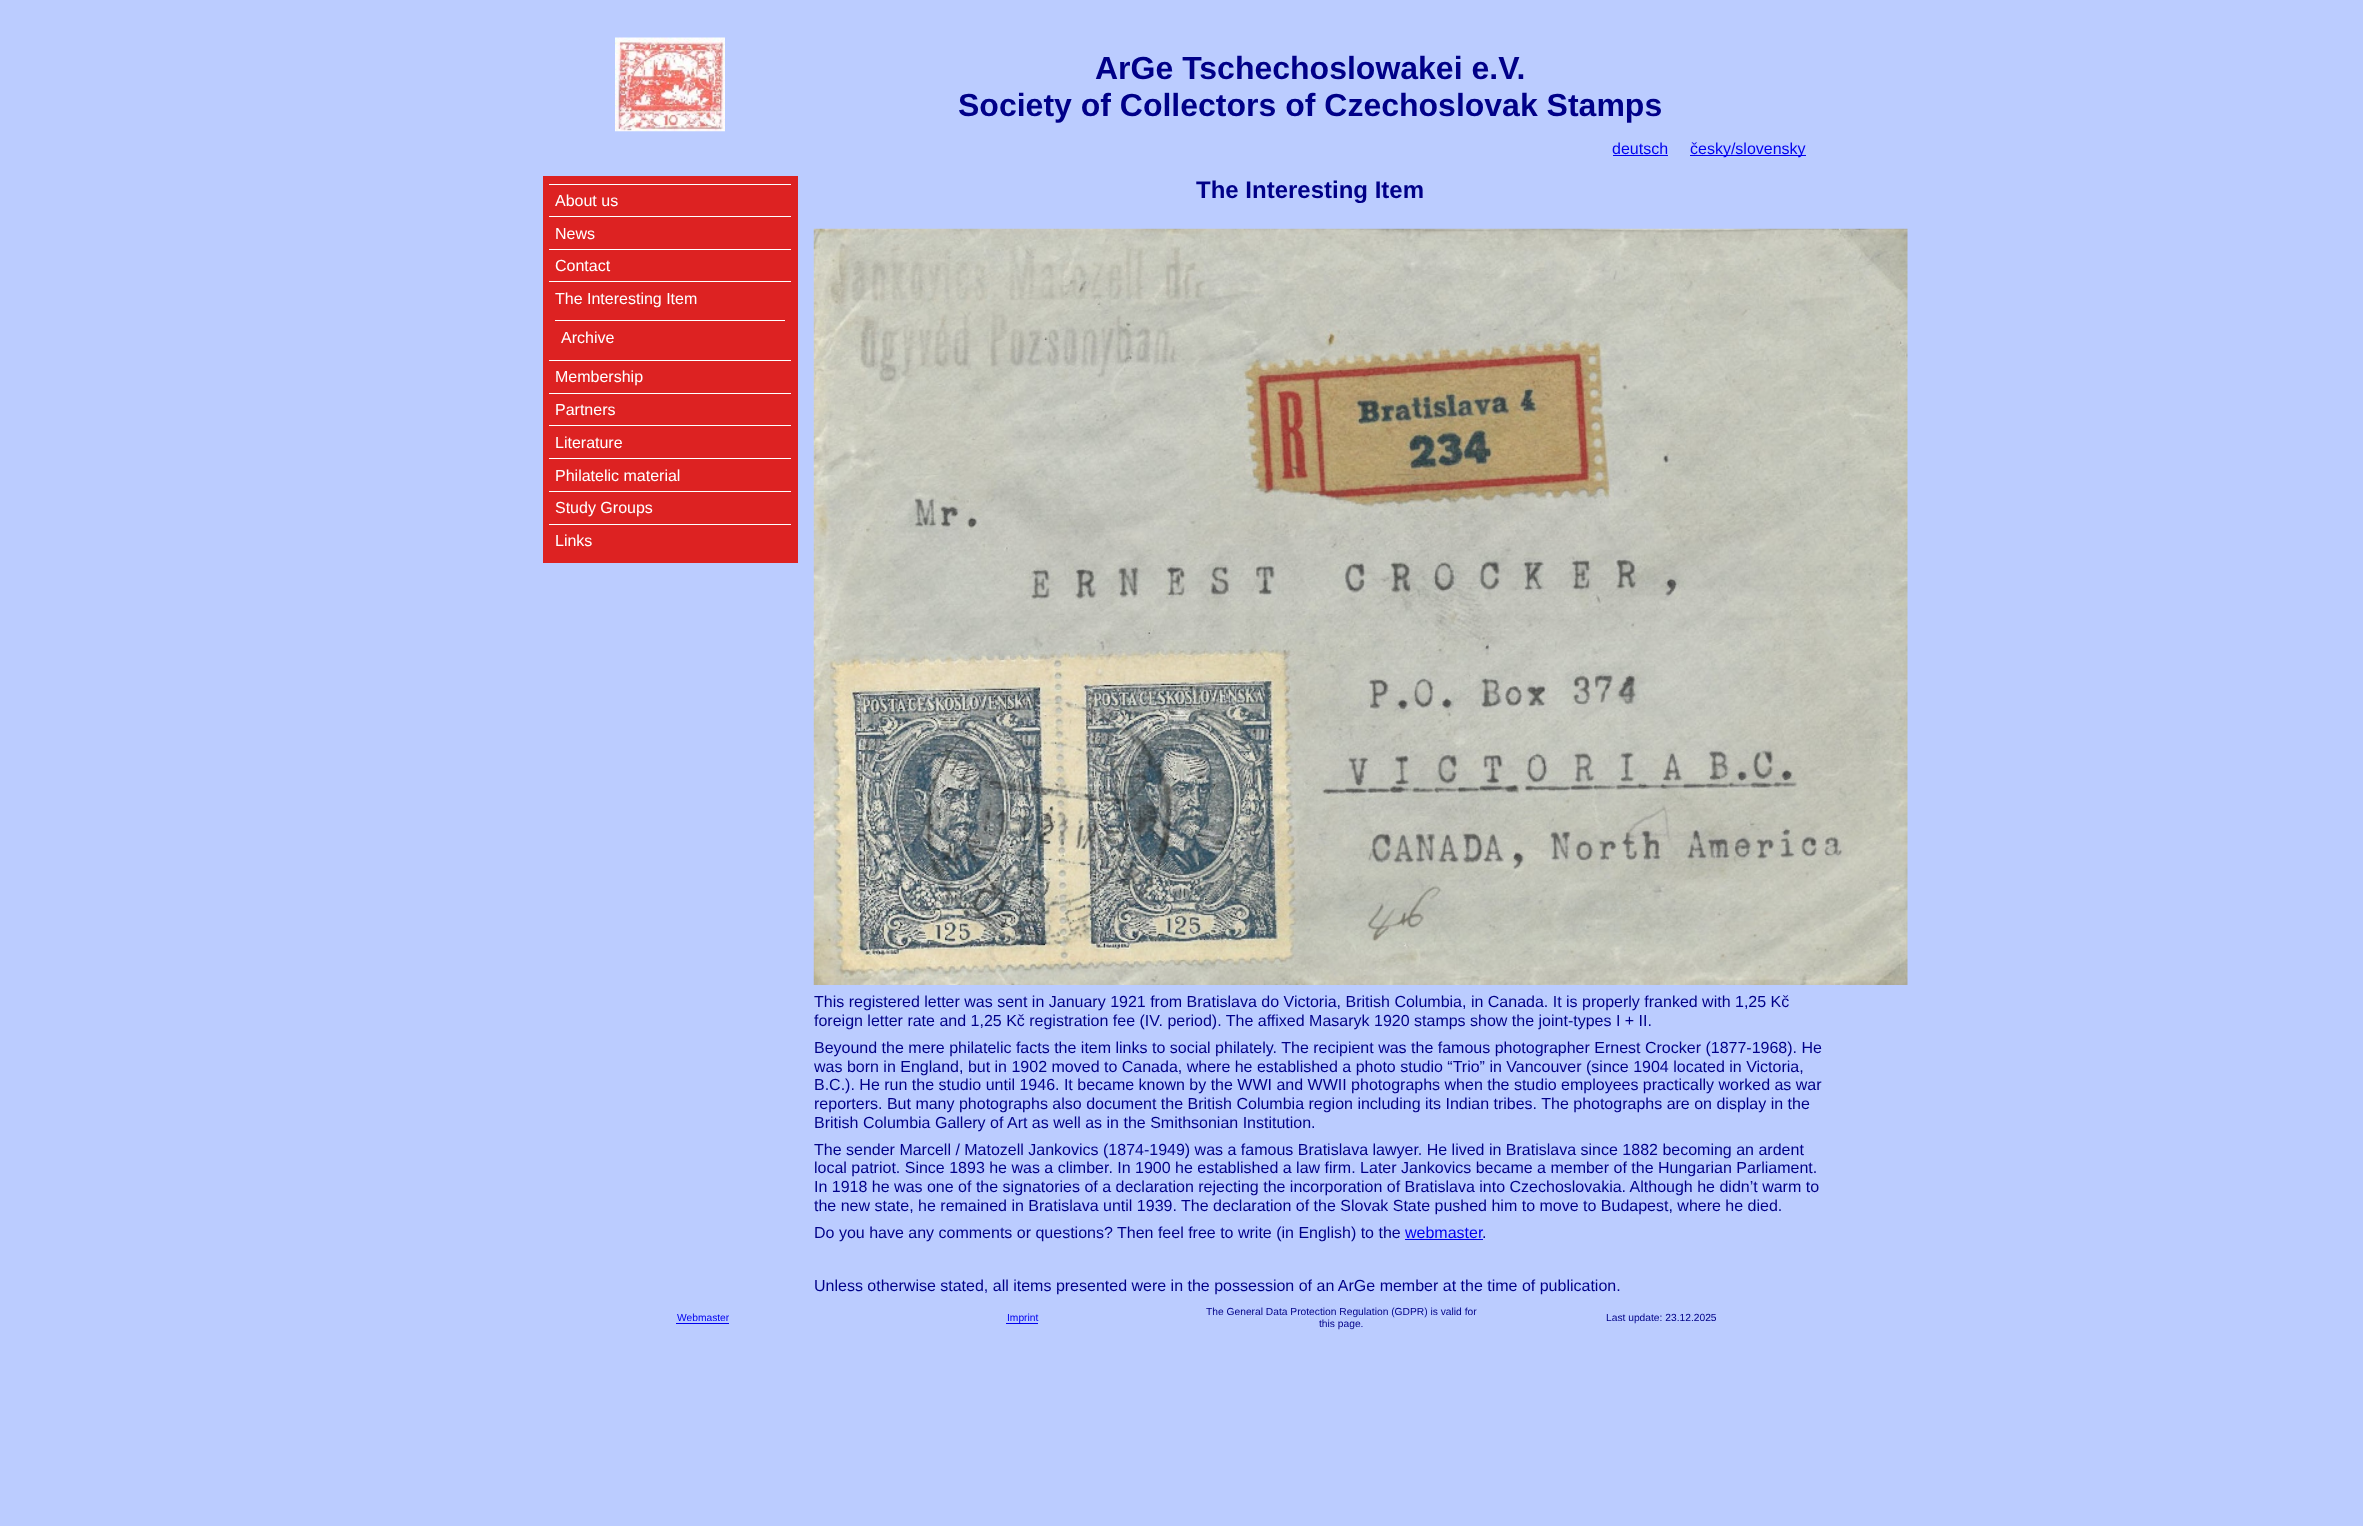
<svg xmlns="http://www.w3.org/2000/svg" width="2363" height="1526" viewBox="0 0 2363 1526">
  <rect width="100%" height="100%" fill="#bbccff"/>
  <image x="615" y="37" width="110" height="95" href="img1.png"/>
  <text x="1095" y="79" font-family="Liberation Sans" font-size="32" font-weight="bold" fill="#000088">ArGe Tschechoslowakei e.V.</text>
  <text x="958" y="116" font-family="Liberation Sans" font-size="32" font-weight="bold" fill="#000088">Society of Collectors of Czechoslovak Stamps</text>
  <text x="1612" y="154" font-family="Liberation Sans" font-size="16" fill="#0000ee">deutsch</text>
  <rect x="1613" y="155" width="55" height="1" fill="#0000ee"/>
  <rect x="1690" y="155" width="116" height="1" fill="#0000ee"/>
  <text x="1690" y="154" font-family="Liberation Sans" font-size="16" fill="#0000ee">česky/slovensky</text>
  <rect x="543" y="176" width="255" height="387" fill="#dd2222"/>
  <rect x="549" y="184" width="242" height="1" fill="#ffffff"/>
  <text x="555" y="206" font-family="Liberation Sans" font-size="16" fill="#ffffff">About us</text>
  <rect x="549" y="216" width="242" height="1" fill="#ffffff"/>
  <text x="555" y="239" font-family="Liberation Sans" font-size="16" fill="#ffffff">News</text>
  <rect x="549" y="249" width="242" height="1" fill="#ffffff"/>
  <text x="555" y="271" font-family="Liberation Sans" font-size="16" fill="#ffffff">Contact</text>
  <rect x="549" y="281" width="242" height="1" fill="#ffffff"/>
  <text x="555" y="304" font-family="Liberation Sans" font-size="16" fill="#ffffff">The Interesting Item</text>
  <rect x="555" y="320" width="230" height="1" fill="#ffffff"/>
  <text x="561" y="343" font-family="Liberation Sans" font-size="16" fill="#ffffff">Archive</text>
  <rect x="549" y="360" width="242" height="1" fill="#ffffff"/>
  <text x="555" y="382" font-family="Liberation Sans" font-size="16" fill="#ffffff">Membership</text>
  <rect x="549" y="393" width="242" height="1" fill="#ffffff"/>
  <text x="555" y="415" font-family="Liberation Sans" font-size="16" fill="#ffffff">Partners</text>
  <rect x="549" y="425" width="242" height="1" fill="#ffffff"/>
  <text x="555" y="448" font-family="Liberation Sans" font-size="16" fill="#ffffff">Literature</text>
  <rect x="549" y="458" width="242" height="1" fill="#ffffff"/>
  <text x="555" y="481" font-family="Liberation Sans" font-size="16" fill="#ffffff">Philatelic material</text>
  <rect x="549" y="491" width="242" height="1" fill="#ffffff"/>
  <text x="555" y="513" font-family="Liberation Sans" font-size="16" fill="#ffffff">Study Groups</text>
  <rect x="549" y="524" width="242" height="1" fill="#ffffff"/>
  <text x="555" y="546" font-family="Liberation Sans" font-size="16" fill="#ffffff">Links</text>
  <text x="1196" y="198" font-family="Liberation Sans" font-size="24" font-weight="bold" fill="#000088">The Interesting Item</text>
  <image x="813" y="228" width="1095" height="757" href="img2.png"/>
  <text x="814" y="1007" font-family="Liberation Sans" font-size="16" fill="#000088">This registered letter was sent in January 1921 from Bratislava do Victoria, British Columbia, in Canada. It is properly franked with 1,25 Kč</text>
  <text x="814" y="1026" font-family="Liberation Sans" font-size="16" fill="#000088">foreign letter rate and 1,25 Kč registration fee (IV. period). The affixed Masaryk 1920 stamps show the joint-types I + II.</text>
  <text x="814" y="1053" font-family="Liberation Sans" font-size="16" fill="#000088">Beyound the mere philatelic facts the item links to social philately. The recipient was the famous photographer Ernest Crocker (1877-1968). He</text>
  <text x="814" y="1072" font-family="Liberation Sans" font-size="16" fill="#000088">was born in England, but in 1902 moved to Canada, where he established a photo studio “Trio” in Vancouver (since 1904 located in Victoria,</text>
  <text x="814" y="1090" font-family="Liberation Sans" font-size="16" fill="#000088">B.C.). He run the studio until 1946. It became known by the WWI and WWII photographs when the studio employees practically worked as war</text>
  <text x="814" y="1109" font-family="Liberation Sans" font-size="16" fill="#000088">reporters. But many photographs also document the British Columbia region including its Indian tribes. The photographs are on display in the</text>
  <text x="814" y="1128" font-family="Liberation Sans" font-size="16" fill="#000088">British Columbia Gallery of Art as well as in the Smithsonian Institution.</text>
  <text x="814" y="1155" font-family="Liberation Sans" font-size="16" fill="#000088">The sender Marcell / Matozell Jankovics (1874-1949) was a famous Bratislava lawyer. He lived in Bratislava since 1882 becoming an ardent</text>
  <text x="814" y="1173" font-family="Liberation Sans" font-size="16" fill="#000088">local patriot. Since 1893 he was a climber. In 1900 he established a law firm. Later Jankovics became a member of the Hungarian Parliament.</text>
  <text x="814" y="1192" font-family="Liberation Sans" font-size="16" fill="#000088">In 1918 he was one of the signatories of a declaration rejecting the incorporation of Bratislava into Czechoslovakia. Although he didn’t warm to</text>
  <text x="814" y="1211" font-family="Liberation Sans" font-size="16" fill="#000088">the new state, he remained in Bratislava until 1939. The declaration of the Slovak State pushed him to move to Budapest, where he died.</text>
  <text x="814" y="1238" font-family="Liberation Sans" font-size="16" fill="#000088">Do you have any comments or questions? Then feel free to write (in English) to the</text>
  <text x="1405" y="1238" font-family="Liberation Sans" font-size="16" fill="#0000ee">webmaster</text>
  <rect x="1405" y="1239" width="78" height="1" fill="#0000ee"/>
  <text x="1482" y="1238" font-family="Liberation Sans" font-size="16" fill="#000088">.</text>
  <text x="814" y="1291" font-family="Liberation Sans" font-size="16" fill="#000088">Unless otherwise stated, all items presented were in the possession of an ArGe member at the time of publication.</text>
  <text x="677" y="1321" font-family="Liberation Sans" font-size="10.25" fill="#0000ee">Webmaster</text>
  <rect x="676" y="1323" width="53" height="1" fill="#0000ee"/>
  <rect x="1006" y="1323" width="32" height="1" fill="#0000ee"/>
  <text x="1007" y="1321" font-family="Liberation Sans" font-size="10.25" fill="#0000ee">Imprint</text>
  <text x="1206" y="1315" font-family="Liberation Sans" font-size="10.25" fill="#000088">The General Data Protection Regulation (GDPR) is valid for</text>
  <text x="1319" y="1327" font-family="Liberation Sans" font-size="10.25" fill="#000088">this page.</text>
  <text x="1606" y="1321" font-family="Liberation Sans" font-size="10.25" fill="#000088">Last update: 23.12.2025</text>
</svg>
